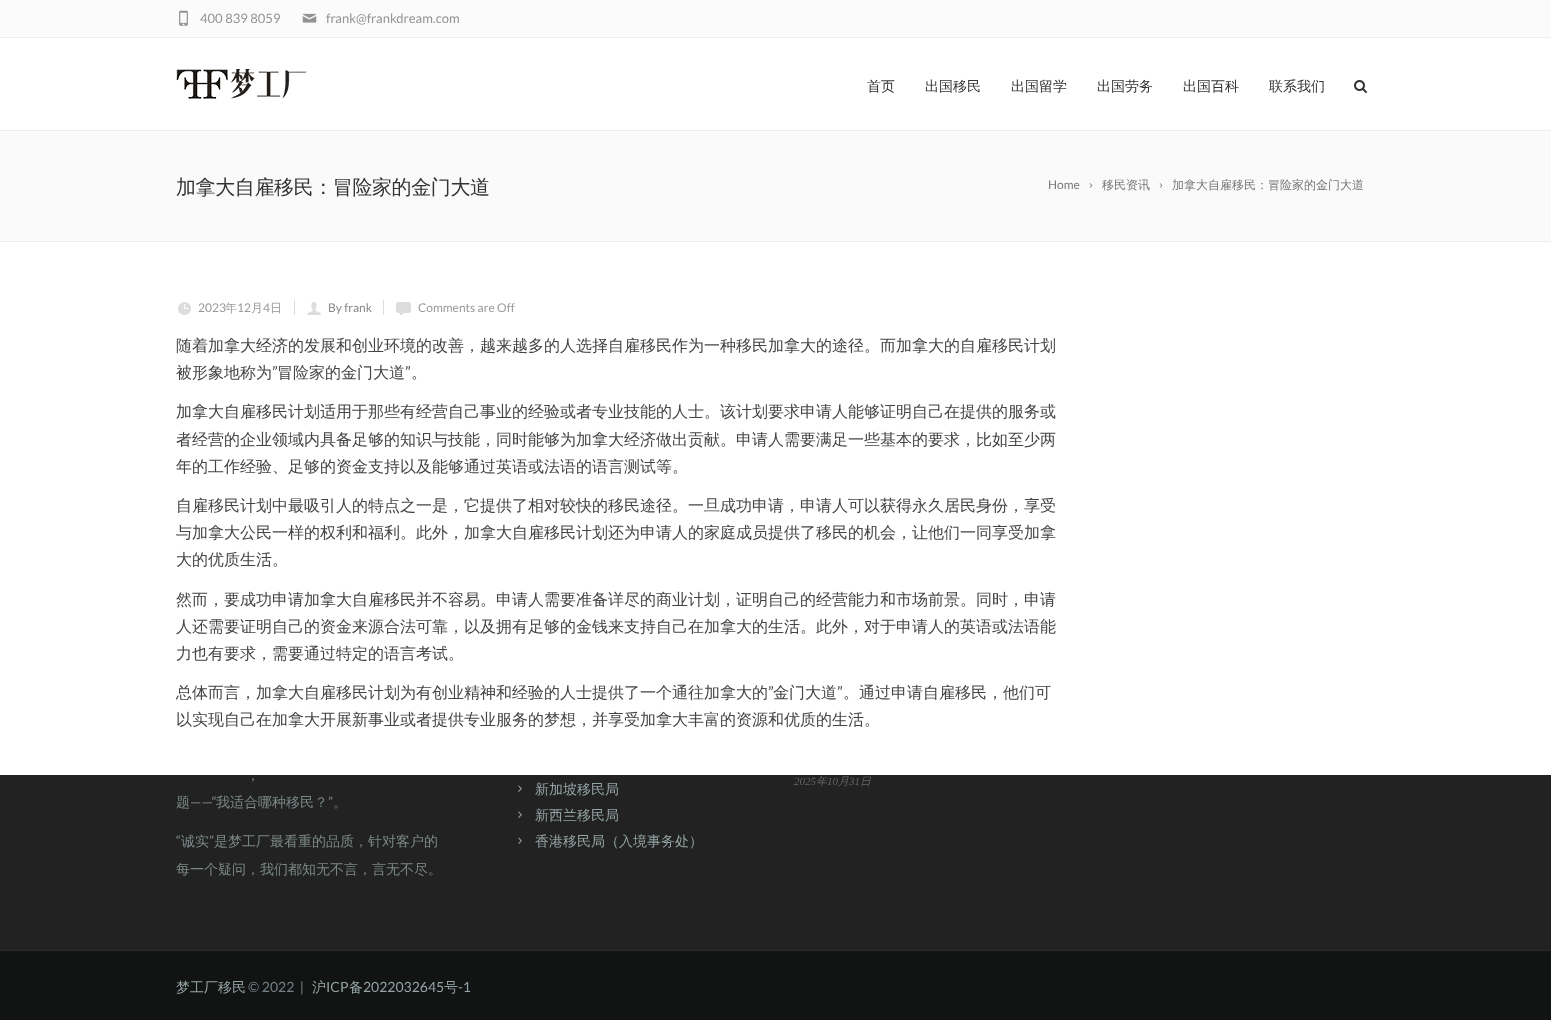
<svg xmlns="http://www.w3.org/2000/svg" width="1551" height="1020" viewBox="0 0 1551 1020">
  <rect width="100%" height="100%" fill="#ffffff"/>
  <rect x="-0.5" y="-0.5" width="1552" height="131" fill="none" stroke="#eeeeee"/>
  <rect x="0" y="0" width="1551" height="37" fill="#fbfbfb"/>
  <rect x="0" y="37" width="1551" height="1" fill="#eeeeee"/>
  <image x="179" y="10" width="9" height="16" href="img1.png"/>
  <text x="200" y="23" font-family="Lato" font-size="13" fill="#939393">400 839 8059</text>
  <image x="302" y="13" width="15" height="10" href="img2.png"/>
  <text x="326" y="23" font-family="Lato" font-size="13" fill="#939393">frank@frankdream.com</text>
  <image x="176" y="69" width="131" height="30" href="img3.png"/>
  <text x="867" y="91" font-family="WenQuanYi Zen Hei" font-size="14" font-weight="500" fill="#333333">首页</text>
  <text x="925" y="91" font-family="WenQuanYi Zen Hei" font-size="14" font-weight="500" fill="#333333">出国移民</text>
  <text x="1011" y="91" font-family="WenQuanYi Zen Hei" font-size="14" font-weight="500" fill="#333333">出国留学</text>
  <text x="1097" y="91" font-family="WenQuanYi Zen Hei" font-size="14" font-weight="500" fill="#333333">出国劳务</text>
  <text x="1183" y="91" font-family="WenQuanYi Zen Hei" font-size="14" font-weight="500" fill="#333333">出国百科</text>
  <text x="1269" y="91" font-family="WenQuanYi Zen Hei" font-size="14" font-weight="500" fill="#333333">联系我们</text>
  <image x="1354" y="80" width="13" height="13" href="img4.png"/>
  <rect x="0" y="131" width="1551" height="110" fill="#fafafa"/>
  <rect x="0" y="241" width="1551" height="1" fill="#eeeeee"/>
  <text x="176" y="194" font-family="WenQuanYi Zen Hei" font-size="20" font-weight="500" letter-spacing="-0.4" fill="#333333">加拿大自雇移民：冒险家的金门大道</text>
  <text x="1048" y="189" font-family="Lato" font-size="12" fill="#777777">Home</text>
  <image x="1089" y="183" width="4" height="5" href="img5.png"/>
  <text x="1102" y="189" font-family="WenQuanYi Zen Hei" font-size="12" font-weight="500" fill="#777777">移民资讯</text>
  <image x="1159" y="183" width="4" height="5" href="img5.png"/>
  <text x="1172" y="189" font-family="WenQuanYi Zen Hei" font-size="12" font-weight="500" fill="#777777">加拿大自雇移民：冒险家的金门大道</text>
  <image x="178" y="302" width="13" height="13" href="img6.png"/>
  <text x="198" y="312" font-family="Lato" font-size="12" fill="#999999">2023</text>
  <text x="225" y="312" font-family="WenQuanYi Zen Hei" font-size="12" font-weight="500" fill="#999999">年</text>
  <text x="237" y="312" font-family="Lato" font-size="12" fill="#999999">12</text>
  <text x="251" y="312" font-family="WenQuanYi Zen Hei" font-size="12" font-weight="500" fill="#999999">月</text>
  <text x="263" y="312" font-family="Lato" font-size="12" fill="#999999">4</text>
  <text x="270" y="312" font-family="WenQuanYi Zen Hei" font-size="12" font-weight="500" fill="#999999">日</text>
  <rect x="294" y="300" width="1" height="15" fill="#dddddd"/>
  <image x="307" y="302" width="14" height="13" href="img7.png"/>
  <text x="328" y="312" font-family="Lato" font-size="12" fill="#888888">By frank</text>
  <rect x="383" y="300" width="1" height="15" fill="#dddddd"/>
  <image x="396" y="302" width="15" height="13" href="img8.png"/>
  <text x="418" y="312" font-family="Lato" font-size="12" fill="#999999">Comments are Off</text>
  <text x="176" y="351" font-family="WenQuanYi Zen Hei" font-size="16" font-weight="500" fill="#444444">随着加拿大经济的发展和创业环境的改善，越来越多的人选择自雇移民作为一种移民加拿大的途径。而加拿大的自雇移民计划</text>
  <text x="176" y="378" font-family="WenQuanYi Zen Hei" font-size="16" font-weight="500" fill="#444444">被形象地称为</text>
  <text x="272" y="378" font-family="Lato" font-size="16" fill="#444444">”</text>
  <text x="277" y="378" font-family="WenQuanYi Zen Hei" font-size="16" font-weight="500" fill="#444444">冒险家的金门大道</text>
  <text x="405" y="378" font-family="Lato" font-size="16" fill="#444444">”</text>
  <text x="411" y="378" font-family="WenQuanYi Zen Hei" font-size="16" font-weight="500" fill="#444444">。</text>
  <text x="176" y="417" font-family="WenQuanYi Zen Hei" font-size="16" font-weight="500" fill="#444444">加拿大自雇移民计划适用于那些有经营自己事业的经验或者专业技能的人士。该计划要求申请人能够证明自己在提供的服务或</text>
  <text x="176" y="445" font-family="WenQuanYi Zen Hei" font-size="16" font-weight="500" fill="#444444">者经营的企业领域内具备足够的知识与技能，同时能够为加拿大经济做出贡献。申请人需要满足一些基本的要求，比如至少两</text>
  <text x="176" y="472" font-family="WenQuanYi Zen Hei" font-size="16" font-weight="500" fill="#444444">年的工作经验、足够的资金支持以及能够通过英语或法语的语言测试等。</text>
  <text x="176" y="511" font-family="WenQuanYi Zen Hei" font-size="16" font-weight="500" fill="#444444">自雇移民计划中最吸引人的特点之一是，它提供了相对较快的移民途径。一旦成功申请，申请人可以获得永久居民身份，享受</text>
  <text x="176" y="538" font-family="WenQuanYi Zen Hei" font-size="16" font-weight="500" fill="#444444">与加拿大公民一样的权利和福利。此外，加拿大自雇移民计划还为申请人的家庭成员提供了移民的机会，让他们一同享受加拿</text>
  <text x="176" y="565" font-family="WenQuanYi Zen Hei" font-size="16" font-weight="500" fill="#444444">大的优质生活。</text>
  <text x="176" y="605" font-family="WenQuanYi Zen Hei" font-size="16" font-weight="500" fill="#444444">然而，要成功申请加拿大自雇移民并不容易。申请人需要准备详尽的商业计划，证明自己的经营能力和市场前景。同时，申请</text>
  <text x="176" y="632" font-family="WenQuanYi Zen Hei" font-size="16" font-weight="500" fill="#444444">人还需要证明自己的资金来源合法可靠，以及拥有足够的金钱来支持自己在加拿大的生活。此外，对于申请人的英语或法语能</text>
  <text x="176" y="659" font-family="WenQuanYi Zen Hei" font-size="16" font-weight="500" fill="#444444">力也有要求，需要通过特定的语言考试。</text>
  <text x="176" y="698" font-family="WenQuanYi Zen Hei" font-size="16" font-weight="500" fill="#444444">总体而言，加拿大自雇移民计划为有创业精神和经验的人士提供了一个通往加拿大的</text>
  <text x="768" y="698" font-family="Lato" font-size="16" fill="#444444">”</text>
  <text x="773" y="698" font-family="WenQuanYi Zen Hei" font-size="16" font-weight="500" fill="#444444">金门大道</text>
  <text x="837" y="698" font-family="Lato" font-size="16" fill="#444444">”</text>
  <text x="843" y="698" font-family="WenQuanYi Zen Hei" font-size="16" font-weight="500" fill="#444444">。通过申请自雇移民，他们可</text>
  <text x="176" y="725" font-family="WenQuanYi Zen Hei" font-size="16" font-weight="500" fill="#444444">以实现自己在加拿大开展新事业或者提供专业服务的梦想，并享受加拿大丰富的资源和优质的生活。</text>
  <rect x="0" y="775" width="1551" height="175" fill="#222222"/>
  <text x="246" y="780" font-family="WenQuanYi Zen Hei" font-size="14" font-weight="500" fill="#7b8887">，</text>
  <text x="176" y="807" font-family="WenQuanYi Zen Hei" font-size="14" font-weight="500" fill="#7b8887">题</text>
  <text x="190" y="807" font-family="Lato" font-size="14" fill="#7b8887">——“</text>
  <text x="216" y="807" font-family="WenQuanYi Zen Hei" font-size="14" font-weight="500" fill="#7b8887">我适合哪种移民？</text>
  <text x="328" y="807" font-family="Lato" font-size="14" fill="#7b8887">”</text>
  <text x="333" y="807" font-family="WenQuanYi Zen Hei" font-size="14" font-weight="500" fill="#7b8887">。</text>
  <text x="176" y="846" font-family="Lato" font-size="14" fill="#7b8887">“</text>
  <text x="181" y="846" font-family="WenQuanYi Zen Hei" font-size="14" font-weight="500" fill="#7b8887">诚实</text>
  <text x="209" y="846" font-family="Lato" font-size="14" fill="#7b8887">”</text>
  <text x="214" y="846" font-family="WenQuanYi Zen Hei" font-size="14" font-weight="500" fill="#7b8887">是梦工厂最看重的品质，针对客户的</text>
  <text x="176" y="874" font-family="WenQuanYi Zen Hei" font-size="14" font-weight="500" fill="#7b8887">每一个疑问，我们都知无不言，言无不尽。</text>
  <image x="518" y="785" width="4" height="7" href="img9.png"/>
  <text x="535" y="794" font-family="WenQuanYi Zen Hei" font-size="14" font-weight="500" fill="#94a3a3">新加坡移民局</text>
  <image x="518" y="811" width="4" height="7" href="img9.png"/>
  <text x="535" y="820" font-family="WenQuanYi Zen Hei" font-size="14" font-weight="500" fill="#94a3a3">新西兰移民局</text>
  <image x="518" y="837" width="4" height="7" href="img9.png"/>
  <text x="535" y="846" font-family="WenQuanYi Zen Hei" font-size="14" font-weight="500" fill="#94a3a3">香港移民局（入境事务处）</text>
  <text x="794" y="785" font-family="Liberation Serif" font-size="11" font-style="italic" fill="#666666">2025</text>
  <text x="816" y="785" font-family="WenQuanYi Zen Hei" font-size="11" font-weight="500" font-style="italic" fill="#666666">年</text>
  <text x="827" y="785" font-family="Liberation Serif" font-size="11" font-style="italic" fill="#666666">10</text>
  <text x="838" y="785" font-family="WenQuanYi Zen Hei" font-size="11" font-weight="500" font-style="italic" fill="#666666">月</text>
  <text x="849" y="785" font-family="Liberation Serif" font-size="11" font-style="italic" fill="#666666">31</text>
  <text x="860" y="785" font-family="WenQuanYi Zen Hei" font-size="11" font-weight="500" font-style="italic" fill="#666666">日</text>
  <rect x="0" y="951" width="1551" height="69" fill="#121313"/>
  <rect x="0" y="950" width="1551" height="1" fill="#2a2a2a"/>
  <text x="176" y="992" font-family="WenQuanYi Zen Hei" font-size="14" font-weight="500" fill="#94a3a3">梦工厂移民</text>
  <text x="248" y="992" font-family="Lato" font-size="14" fill="#748188" xml:space="preserve">© 2022  |</text>
  <text x="312" y="992" font-family="WenQuanYi Zen Hei" font-size="14" font-weight="500" fill="#94a3a3">沪</text>
  <text x="326" y="992" font-family="Lato" font-size="14" fill="#94a3a3">ICP</text>
  <text x="349" y="992" font-family="WenQuanYi Zen Hei" font-size="14" font-weight="500" fill="#94a3a3">备</text>
  <text x="363" y="992" font-family="Lato" font-size="14" fill="#94a3a3">2022032645</text>
  <text x="444" y="992" font-family="WenQuanYi Zen Hei" font-size="14" font-weight="500" fill="#94a3a3">号</text>
  <text x="458" y="992" font-family="Lato" font-size="14" fill="#94a3a3">-1</text>
</svg>
